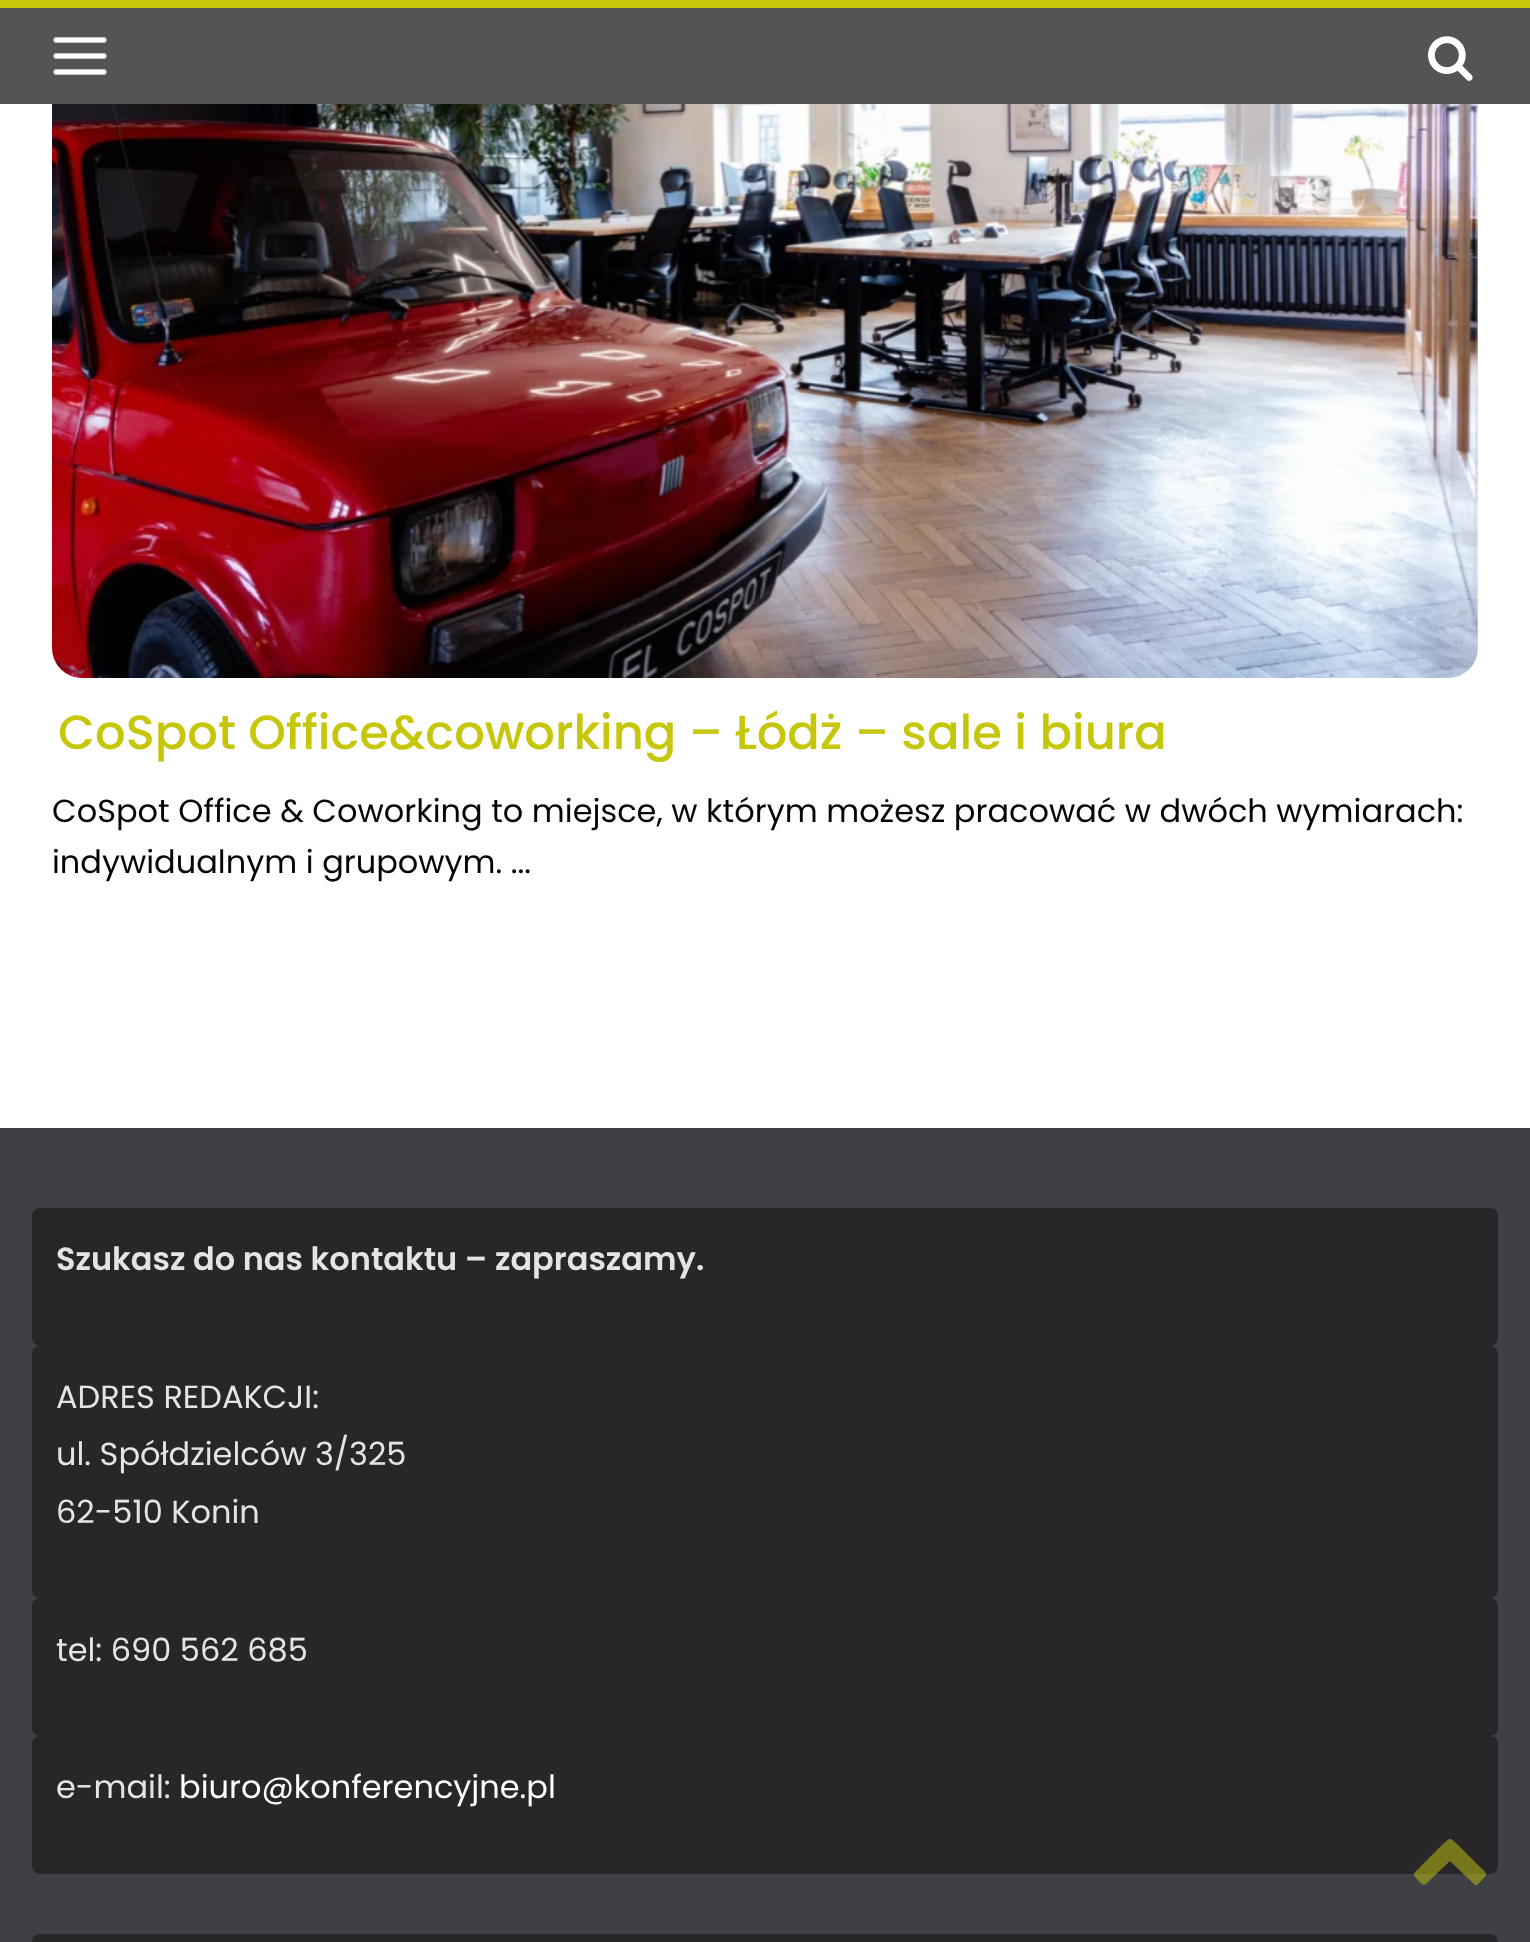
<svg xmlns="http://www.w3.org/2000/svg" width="1530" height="1942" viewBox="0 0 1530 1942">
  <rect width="100%" height="100%" fill="#ffffff"/>
  <rect x="0" y="8" width="1530" height="96" fill="#545454"/>
  <rect x="0" y="0" width="1530" height="8" fill="#c6c60b"/>
  <image x="53" y="37" width="54" height="38" href="img1.png"/>
  <image x="1428" y="36" width="45" height="45" href="img2.png"/>
  <image x="52" y="104" width="1426" height="574" href="img3.png"/>
  <text x="58" y="749" font-family="Poppins" font-size="48" font-weight="500" fill="#c6c60b">CoSpot Office&amp;coworking – Łódż – sale i biura</text>
  <text x="52" y="822" font-family="Poppins" font-size="32" fill="#050505">CoSpot Office &amp; Coworking to miejsce, w którym możesz pracować w dwóch wymiarach:</text>
  <text x="52" y="873" font-family="Poppins" font-size="32" fill="#050505">indywidualnym i grupowym. ...</text>
  <rect x="0" y="1128" width="1530" height="814" fill="#3f3f46"/>
  <rect x="32" y="1208" width="1466" height="138" rx="8" fill="#27272a"/>
  <text x="56" y="1270" font-family="Poppins" font-size="32" font-weight="600" fill="#e4e4e7">Szukasz do nas kontaktu – zapraszamy.</text>
  <rect x="32" y="1346" width="1466" height="252" rx="8" fill="#27272a"/>
  <text x="56" y="1408" font-family="Poppins" font-size="32" fill="#e4e4e7">ADRES REDAKCJI:</text>
  <text x="56" y="1465" font-family="Poppins" font-size="32" fill="#e4e4e7">ul. Spółdzielców 3/325</text>
  <text x="56" y="1523" font-family="Poppins" font-size="32" fill="#e4e4e7">62-510 Konin</text>
  <rect x="32" y="1598" width="1466" height="138" rx="8" fill="#27272a"/>
  <text x="56" y="1661" font-family="Poppins" font-size="32" fill="#e4e4e7">tel: 690 562 685</text>
  <rect x="32" y="1736" width="1466" height="138" rx="8" fill="#27272a"/>
  <text x="56" y="1798" font-family="Poppins" font-size="32" fill="#e4e4e7">e-mail:</text>
  <text x="179" y="1798" font-family="Poppins" font-size="32" fill="#ffffff">biuro@konferencyjne.pl</text>
  <rect x="32" y="1934" width="1466" height="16" rx="8" fill="#27272a"/>
  <path d="M1485 1877L1479 1883C1475 1887 1474 1884 1470 1880L1450 1861L1430 1880C1423 1888 1424 1886 1416 1878C1411 1873 1416 1872 1420 1867L1442 1845C1451 1837 1449 1837 1458 1845L1480 1867C1481 1868 1489 1873 1485 1877Z" fill="#c6c60b" fill-opacity="0.5"/>
</svg>
